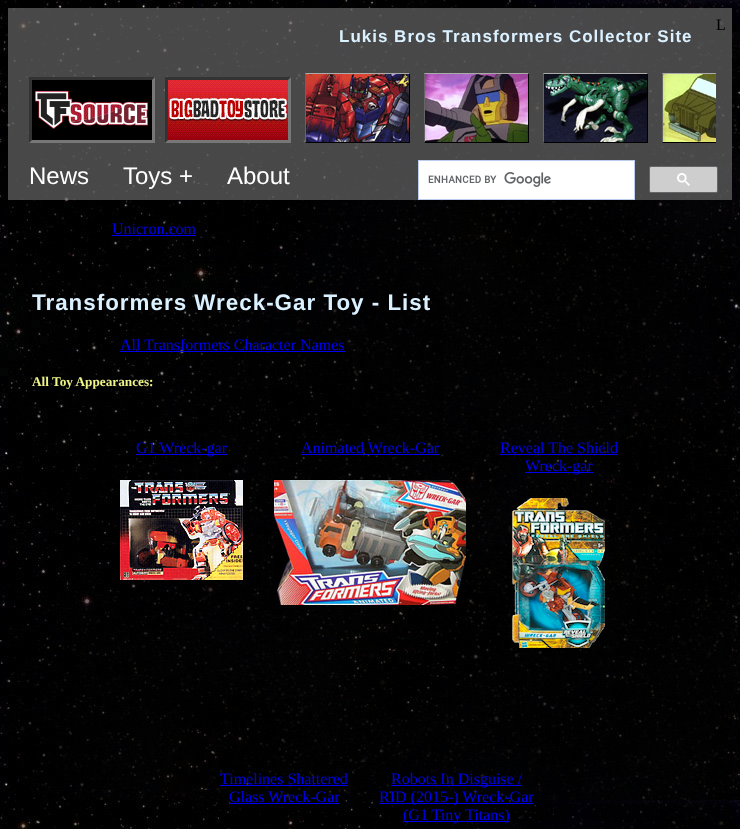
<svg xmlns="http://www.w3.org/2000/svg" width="740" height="829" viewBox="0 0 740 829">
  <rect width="100%" height="100%" fill="#ffffff"/>
  <image x="0" y="0" width="740" height="829" href="img1.png"/>
  <rect x="8" y="8" width="724" height="192" fill="#787878" fill-opacity="0.6"/>
  <text x="716" y="30" font-family="Liberation Serif" font-size="16" fill="#000000">L</text>
  <text x="339" y="42" font-family="Liberation Sans" font-size="17" font-weight="bold" letter-spacing="1" fill="#dbf1ff">Lukis Bros Transformers Collector Site</text>
  <image x="29" y="73" width="687" height="70" href="img2.png"/>
  <text x="29" y="184" font-family="Liberation Sans" font-size="24" fill="#ffffff">News</text>
  <text x="123" y="184" font-family="Liberation Sans" font-size="24" fill="#ffffff">Toys +</text>
  <text x="227" y="184" font-family="Liberation Sans" font-size="24" fill="#ffffff">About</text>
  <rect x="418.5" y="160.5" width="216" height="39" fill="#ffffff" stroke="#bccdf0"/>
  <image x="428" y="172" width="123" height="15" href="img3.png"/>
  <rect x="649.5" y="166.5" width="68" height="26" rx="1.5" fill="#cecece" stroke="#666666"/>
  <image x="677" y="173" width="13" height="13" href="img4.png"/>
  <text x="112" y="234" font-family="Liberation Serif" font-size="16" fill="#0000ee">Unicron.com</text>
  <rect x="112" y="235" width="84" height="1" fill="#0000ee"/>
  <text x="32" y="310" font-family="Liberation Sans" font-size="22.4" font-weight="bold" letter-spacing="1" fill="#dbf1ff">Transformers Wreck-Gar Toy - List</text>
  <text x="120" y="350" font-family="Liberation Serif" font-size="16" fill="#0000ee">All Transformers Character Names</text>
  <rect x="120" y="351" width="225" height="1" fill="#0000ee"/>
  <text x="32" y="386" font-family="Liberation Serif" font-size="13.25" font-weight="bold" fill="#eef489">All Toy Appearances:</text>
  <rect x="136" y="454" width="91" height="1" fill="#0000ee"/>
  <text x="136" y="453" font-family="Liberation Serif" font-size="16" fill="#0000ee">G1 Wreck-gar</text>
  <image x="120" y="480" width="123" height="100" href="img5.png"/>
  <text x="301" y="453" font-family="Liberation Serif" font-size="16" fill="#0000ee">Animated Wreck-Gar</text>
  <rect x="301" y="454" width="138" height="1" fill="#0000ee"/>
  <image x="274" y="480" width="192" height="125" href="img6.png"/>
  <text x="500" y="453" font-family="Liberation Serif" font-size="16" fill="#0000ee">Reveal The Shield</text>
  <rect x="500" y="454" width="118" height="1" fill="#0000ee"/>
  <rect x="525" y="472" width="68" height="1" fill="#0000ee"/>
  <text x="525" y="471" font-family="Liberation Serif" font-size="16" fill="#0000ee">Wreck-gar</text>
  <image x="512" y="498" width="93" height="150" href="img7.png"/>
  <text x="220" y="784" font-family="Liberation Serif" font-size="16" fill="#0000ee">Timelines Shattered</text>
  <rect x="220" y="785" width="128" height="1" fill="#0000ee"/>
  <text x="229" y="802" font-family="Liberation Serif" font-size="16" fill="#0000ee">Glass Wreck-Gar</text>
  <rect x="229" y="803" width="110" height="1" fill="#0000ee"/>
  <rect x="391" y="785" width="131" height="1" fill="#0000ee"/>
  <text x="391" y="784" font-family="Liberation Serif" font-size="16" fill="#0000ee">Robots In Disguise /</text>
  <rect x="379" y="803" width="154" height="1" fill="#0000ee"/>
  <text x="379" y="802" font-family="Liberation Serif" font-size="16" fill="#0000ee">RID (2015-) Wreck-Gar</text>
  <rect x="403" y="821" width="106" height="1" fill="#0000ee"/>
  <text x="403" y="820" font-family="Liberation Serif" font-size="16" fill="#0000ee">(G1 Tiny Titans)</text>
</svg>
